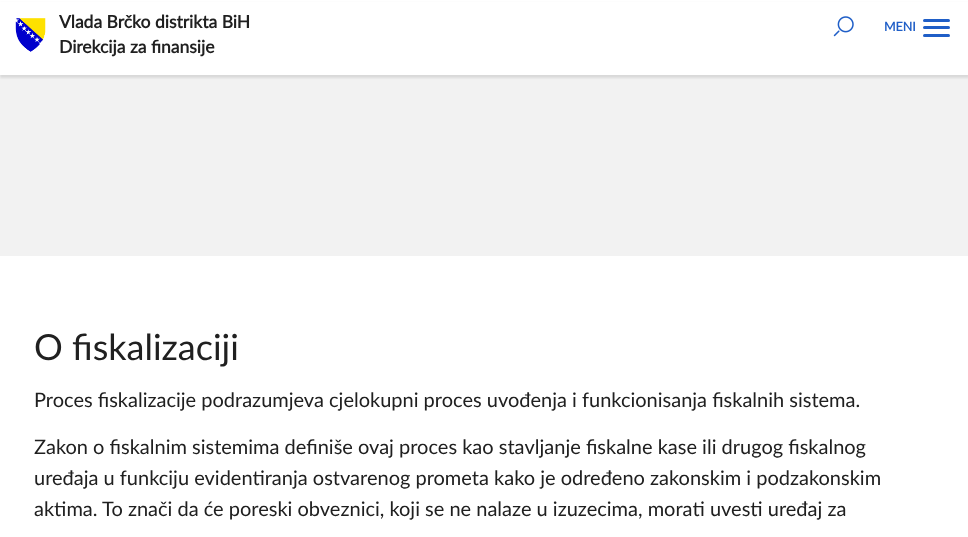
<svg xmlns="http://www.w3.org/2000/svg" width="968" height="537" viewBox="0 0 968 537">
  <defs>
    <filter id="blur1" x="-50%" y="-200%" width="200%" height="500%"><feGaussianBlur stdDeviation="1"/></filter>
  </defs>
  <rect width="100%" height="100%" fill="#ffffff"/>
  <rect x="0" y="75" width="968" height="181" fill="#f2f2f2"/>
  <rect x="0" y="3" width="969" height="75" fill="#000000" fill-opacity="0.1" filter="url(#blur1)"/>
  <rect x="0" y="2" width="968" height="73" fill="#ffffff"/>
  <image x="15" y="18" width="31" height="34" href="img1.png"/>
  <text x="59" y="28" font-family="Lato" font-size="17.5" font-weight="bold" fill="#202020">Vlada Brčko distrikta BiH</text>
  <text x="59" y="53" font-family="Lato" font-size="17.5" font-weight="bold" fill="#202020">Direkcija za finansije</text>
  <image x="833" y="16" width="21" height="21" href="img2.png"/>
  <text x="884" y="31" font-family="Lato" font-size="12.5" font-weight="bold" fill="#1f5ec7">MENI</text>
  <rect x="923" y="19" width="27" height="3" rx="1.5" fill="#1f5ec7"/>
  <rect x="923" y="26" width="27" height="3" rx="1.5" fill="#1f5ec7"/>
  <rect x="923" y="34" width="27" height="3" rx="1.5" fill="#1f5ec7"/>
  <text x="34" y="360" font-family="Lato" font-size="36" fill="#202020">O fiskalizaciji</text>
  <text x="34" y="407" font-family="'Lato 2'" font-size="20" fill="#202020">Proces fiskalizacije podrazumjeva cjelokupni proces uvođenja i funkcionisanja fiskalnih sistema.</text>
  <text x="34" y="454" font-family="'Lato 2'" font-size="20" fill="#202020">Zakon o fiskalnim sistemima definiše ovaj proces kao stavljanje fiskalne kase ili drugog fiskalnog</text>
  <text x="34" y="485" font-family="'Lato 2'" font-size="20" fill="#202020">uređaja u funkciju evidentiranja ostvarenog prometa kako je određeno zakonskim i podzakonskim</text>
  <text x="34" y="516" font-family="'Lato 2'" font-size="20" fill="#202020">aktima. To znači da će poreski obveznici, koji se ne nalaze u izuzecima, morati uvesti uređaj za</text>
</svg>
